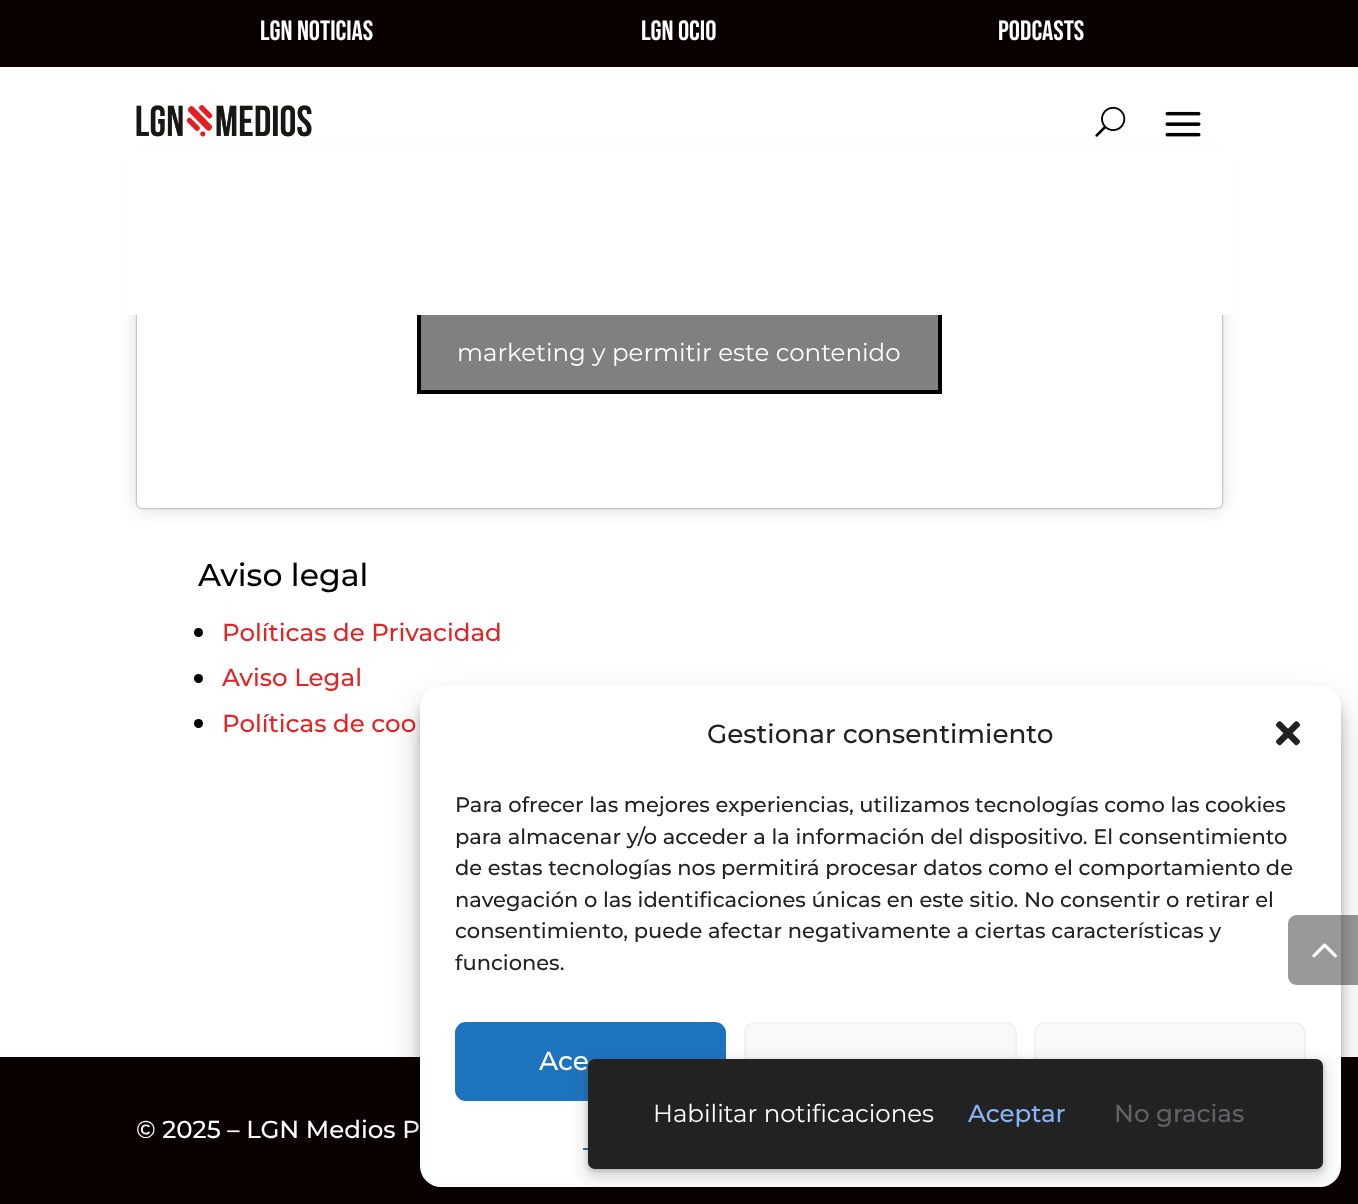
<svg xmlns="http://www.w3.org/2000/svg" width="1358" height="1204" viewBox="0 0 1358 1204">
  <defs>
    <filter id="blur1" x="-50%" y="-200%" width="200%" height="500%"><feGaussianBlur stdDeviation="9"/></filter>
    <filter id="blur2" x="-50%" y="-200%" width="200%" height="500%"><feGaussianBlur stdDeviation="1"/></filter>
    <filter id="blur3" x="-50%" y="-200%" width="200%" height="500%"><feGaussianBlur stdDeviation="5"/></filter>
    <filter id="blur4" x="-50%" y="-200%" width="200%" height="500%"><feGaussianBlur stdDeviation="17.5"/></filter>
    <filter id="blur5" x="-50%" y="-200%" width="200%" height="500%"><feGaussianBlur stdDeviation="7"/></filter>
    <filter id="blur6" x="-50%" y="-200%" width="200%" height="500%"><feGaussianBlur stdDeviation="2.5"/></filter>
  </defs>
  <rect width="100%" height="100%" fill="#ffffff"/>
  <rect x="0" y="0" width="1358" height="67" fill="#0a0000"/>
  <text x="260" y="40" font-family="Bebas Neue" font-size="28" fill="#ffffff">LGN Noticias</text>
  <text x="641" y="40" font-family="Bebas Neue" font-size="28" fill="#ffffff">LGN ocio</text>
  <text x="998" y="40" font-family="Bebas Neue" font-size="28" fill="#ffffff">podcasts</text>
  <rect x="137" y="159" width="1085" height="350" rx="5" fill="#000000" fill-opacity="0.15" filter="url(#blur1)"/>
  <rect x="137" y="158" width="1085" height="350" rx="5" fill="#000000" fill-opacity="0.5" filter="url(#blur2)"/>
  <rect x="137" y="158" width="1085" height="350" rx="5" fill="#ffffff"/>
  <rect x="421" y="315" width="517" height="75" fill="#808080"/>
  <rect x="419" y="273" width="521" height="119" fill="none" stroke="#000000" stroke-width="4"/>
  <rect x="124" y="146" width="1111" height="169" fill="#ffffff"/>
  <image x="136" y="105" width="176" height="32" href="img1.png"/>
  <image x="1095" y="106" width="31" height="31" href="img2.png"/>
  <image x="1165" y="111" width="36" height="26" href="img3.png"/>
  <text x="457" y="361" font-family="Montserrat" font-size="24.5" font-weight="100" fill="#ffffff">marketing y permitir este contenido</text>
  <text x="198" y="586" font-family="'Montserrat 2'" font-size="31.5" font-weight="100" fill="#000000">Aviso legal</text>
  <circle cx="198.5" cy="632.5" r="4.5" fill="#000000"/>
  <text x="222" y="641" font-family="'Montserrat 2'" font-size="24.5" font-weight="100" fill="#e22424">Políticas de Privacidad</text>
  <circle cx="198.5" cy="678.5" r="4.5" fill="#000000"/>
  <text x="222" y="686" font-family="'Montserrat 2'" font-size="24.5" font-weight="100" fill="#e22424">Aviso Legal</text>
  <circle cx="198.5" cy="723.5" r="4.5" fill="#000000"/>
  <text x="222" y="732" font-family="'Montserrat 2'" font-size="24.5" font-weight="100" fill="#e22424">Políticas de coo</text>
  <rect x="0" y="1057" width="1358" height="147" fill="#0a0000"/>
  <text x="136" y="1138" font-family="'Montserrat 2'" font-size="24.5" font-weight="100" fill="#ffffff">© 2025 – LGN Medios P</text>
  <rect x="420" y="697" width="921" height="500" rx="21" fill="#000000" fill-opacity="0.23" filter="url(#blur3)"/>
  <rect x="420" y="704" width="921" height="500" rx="21" fill="#000000" fill-opacity="0.19" filter="url(#blur4)"/>
  <rect x="420" y="686" width="921" height="501" rx="21" fill="#ffffff"/>
  <text x="707" y="743" font-family="'Montserrat 2'" font-size="26.25" font-weight="100" fill="#222222">Gestionar consentimiento</text>
  <image x="1276" y="721" width="24" height="25" href="img4.png"/>
  <text x="455" y="812" font-family="'Montserrat 2'" font-size="21" font-weight="100" fill="#222222">Para ofrecer las mejores experiencias, utilizamos tecnologías como las cookies</text>
  <text x="455" y="844" font-family="'Montserrat 2'" font-size="21" font-weight="100" fill="#222222">para almacenar y/o acceder a la información del dispositivo. El consentimiento</text>
  <text x="455" y="875" font-family="'Montserrat 2'" font-size="21" font-weight="100" fill="#222222">de estas tecnologías nos permitirá procesar datos como el comportamiento de</text>
  <text x="455" y="907" font-family="'Montserrat 2'" font-size="21" font-weight="100" fill="#222222">navegación o las identificaciones únicas en este sitio. No consentir o retirar el</text>
  <text x="455" y="938" font-family="'Montserrat 2'" font-size="21" font-weight="100" fill="#222222">consentimiento, puede afectar negativamente a ciertas características y</text>
  <text x="455" y="970" font-family="'Montserrat 2'" font-size="21" font-weight="100" fill="#222222">funciones.</text>
  <rect x="456" y="1023" width="269" height="77" rx="10" fill="#1e73be" stroke="#1e73be" stroke-width="2"/>
  <text x="539" y="1070" font-family="'Montserrat 2'" font-size="26.25" font-weight="100" fill="#ffffff">Ace</text>
  <rect x="745" y="1023" width="271" height="77" rx="10" fill="#f9f9f9" stroke="#f2f2f2" stroke-width="2"/>
  <rect x="1035" y="1023" width="270" height="77" rx="10" fill="#f9f9f9" stroke="#f2f2f2" stroke-width="2"/>
  <rect x="583" y="1148" width="5" height="2" fill="#1e73be"/>
  <path d="M1297 915H1358V985H1297C1292 985 1288 981 1288 976V924C1288 919 1292 915 1297 915Z" fill="#000000" fill-opacity="0.4"/>
  <image x="1312" y="943" width="25" height="15" href="img5.png"/>
  <rect x="583" y="1061" width="745" height="120" rx="12" fill="#3c4043" fill-opacity="0.15" filter="url(#blur5)"/>
  <rect x="588" y="1061" width="735" height="110" rx="7" fill="#3c4043" fill-opacity="0.3" filter="url(#blur6)"/>
  <rect x="588" y="1059" width="735" height="110" rx="7" fill="#222222"/>
  <text x="653" y="1122" font-family="Montserrat" font-size="24.5" font-weight="100" fill="#ffffff">Habilitar notificaciones</text>
  <text x="968" y="1122" font-family="'Montserrat 2'" font-size="24.5" font-weight="100" fill="#8ab4f8">Aceptar</text>
  <text x="1114" y="1122" font-family="'Montserrat 2'" font-size="24.5" font-weight="100" fill="#5f6368">No gracias</text>
</svg>
